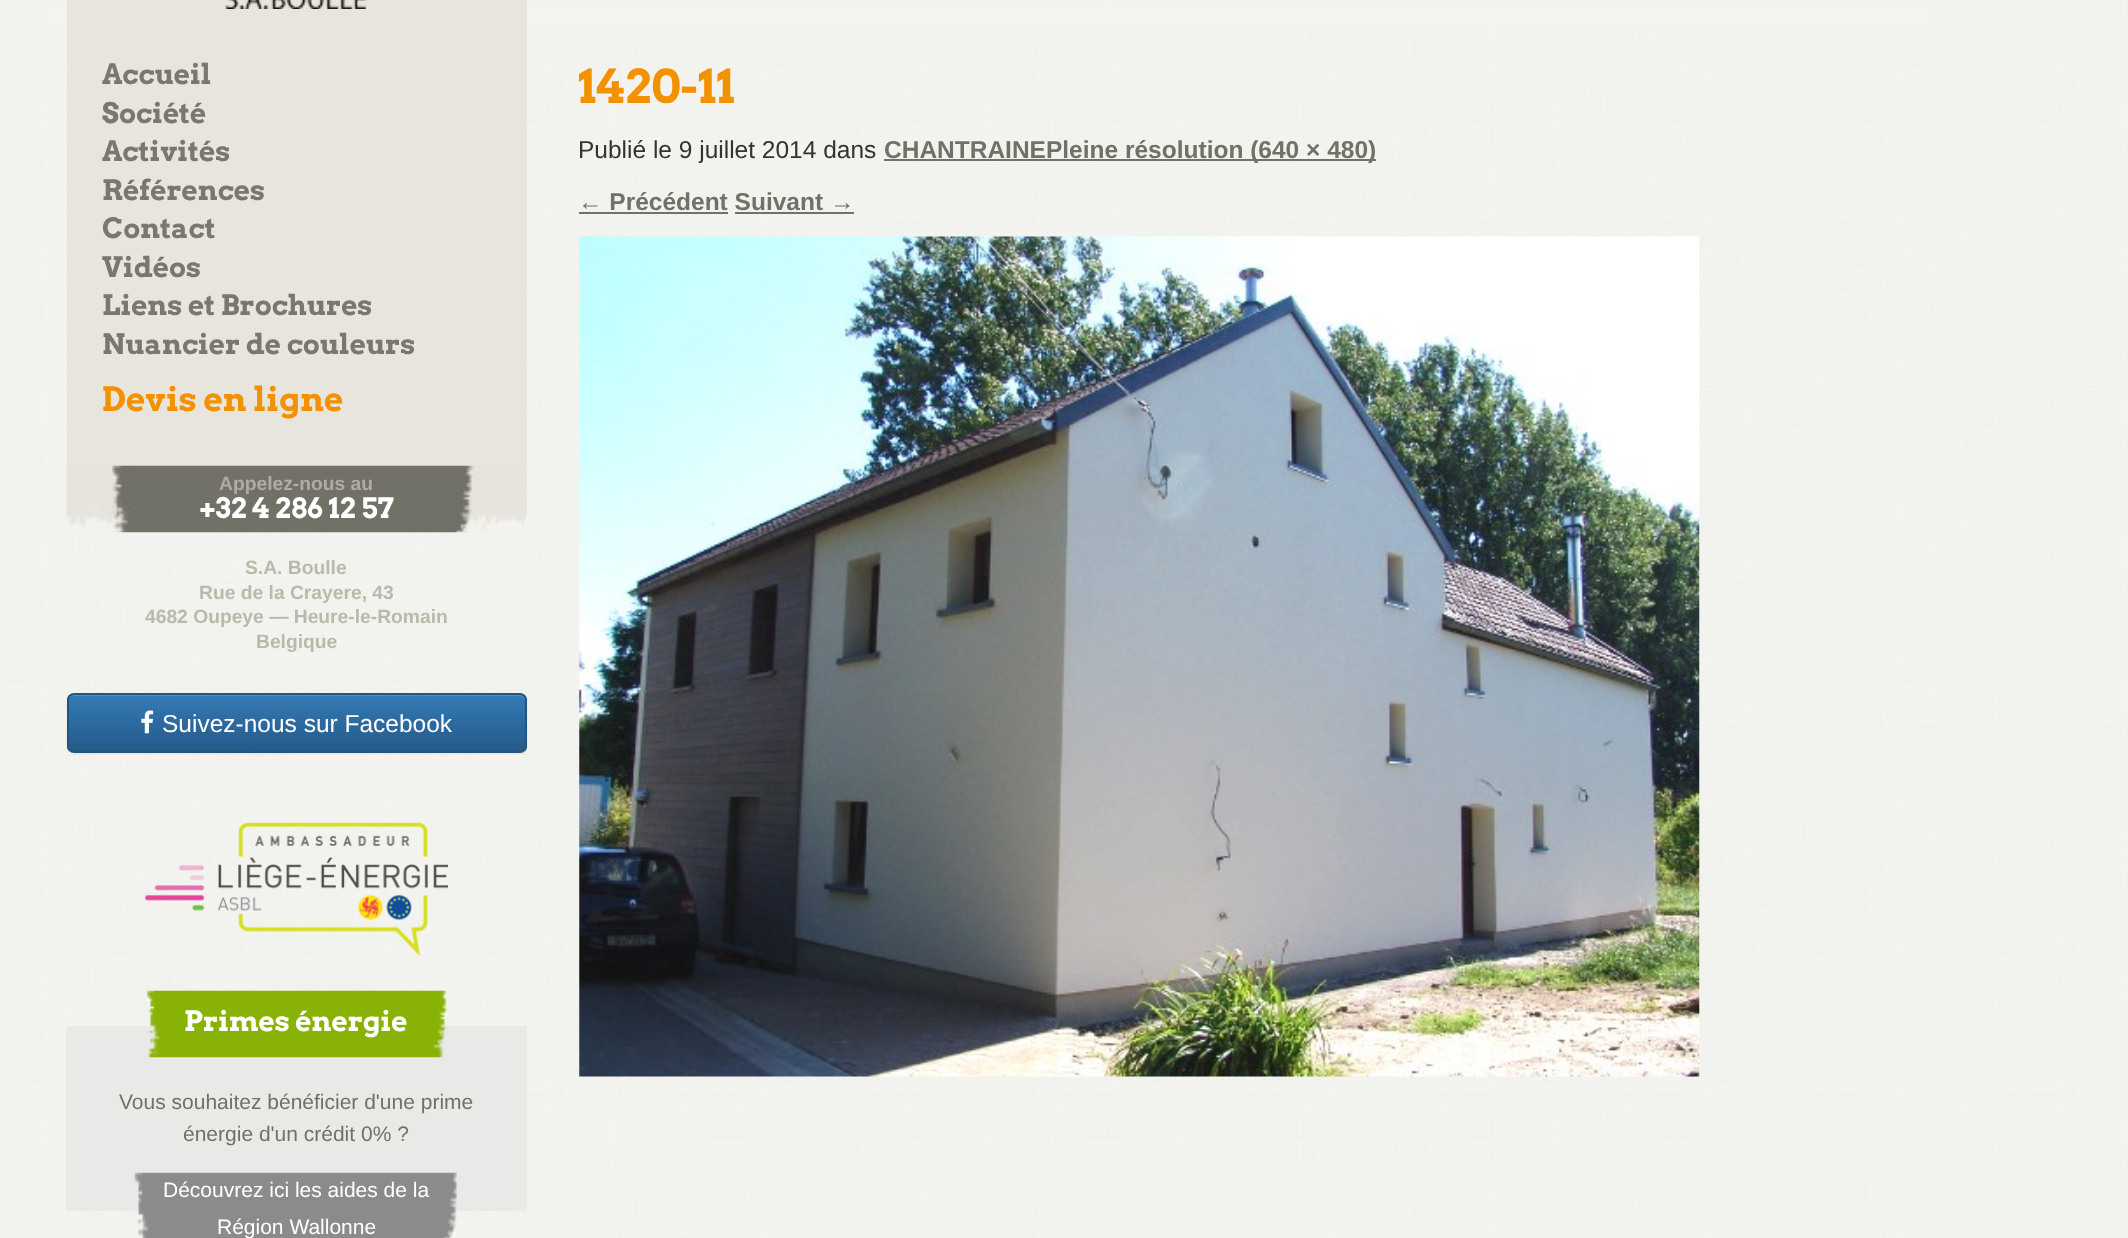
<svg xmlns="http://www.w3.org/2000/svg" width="2128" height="1238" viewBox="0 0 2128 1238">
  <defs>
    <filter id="blur1" x="-50%" y="-200%" width="200%" height="500%"><feGaussianBlur stdDeviation="1"/></filter>
    <clipPath id="clip1"><rect x="67" y="693" width="460" height="60" rx="7"/></clipPath>
    <linearGradient id="g1" gradientUnits="userSpaceOnUse" x1="297" y1="695" x2="297" y2="751"><stop offset="0" stop-color="#337ab7"/><stop offset="1" stop-color="#265a88"/></linearGradient>
  </defs>
  <rect width="100%" height="100%" fill="#ffffff"/>
  <image x="0" y="0" width="2128" height="1238" href="img1.png"/>
  <rect x="41" y="1" width="1891" height="25" fill="#f3f4ef"/>
  <rect x="67" y="0" width="460" height="466" fill="#e7e5dc"/>
  <image x="225" y="0" width="142" height="9" href="img2.png"/>
  <text x="102" y="84" font-family="Arvo" font-size="28" font-weight="bold" fill="#78786e">Accueil</text>
  <text x="102" y="123" font-family="Arvo" font-size="28" font-weight="bold" fill="#78786e">Société</text>
  <text x="102" y="161" font-family="Arvo" font-size="28" font-weight="bold" fill="#78786e">Activités</text>
  <text x="102" y="200" font-family="Arvo" font-size="28" font-weight="bold" fill="#78786e">Références</text>
  <text x="102" y="238" font-family="Arvo" font-size="28" font-weight="bold" fill="#78786e">Contact</text>
  <text x="102" y="277" font-family="Arvo" font-size="28" font-weight="bold" fill="#78786e">Vidéos</text>
  <text x="102" y="315" font-family="Arvo" font-size="28" font-weight="bold" fill="#78786e">Liens et Brochures</text>
  <text x="102" y="354" font-family="Arvo" font-size="28" font-weight="bold" fill="#78786e">Nuancier de couleurs</text>
  <text x="102" y="411" font-family="Arvo" font-size="33.5" font-weight="bold" fill="#f39200">Devis en ligne</text>
  <image x="66" y="465" width="461" height="68" href="img3.png"/>
  <text x="219" y="490" font-family="Liberation Sans" font-size="19.25" font-weight="bold" fill="#afada3">Appelez-nous au</text>
  <text x="199" y="518" font-family="Arvo" font-size="28" font-weight="bold" fill="#ffffff">+32 4 286 12 57</text>
  <text x="245" y="574" font-family="Liberation Sans" font-size="19.25" font-weight="bold" fill="#babaab">S.A. Boulle</text>
  <text x="199" y="599" font-family="Liberation Sans" font-size="19.25" font-weight="bold" fill="#babaab">Rue de la Crayere, 43</text>
  <text x="145" y="623" font-family="Liberation Sans" font-size="19.25" font-weight="bold" fill="#babaab">4682 Oupeye — Heure-le-Romain</text>
  <text x="256" y="648" font-family="Liberation Sans" font-size="19.25" font-weight="bold" fill="#babaab">Belgique</text>
  <rect x="67" y="695" width="460" height="59" rx="7" fill="#000000" fill-opacity="0.07" filter="url(#blur1)"/>
  <g clip-path="url(#clip1)">
    <rect x="67" y="695" width="460" height="56" fill="url(#g1)"/>
  </g>
  <path d="M74 696H520C523 696 525 699 525 702C525 699 524 695 520 695H73C69 695 68 699 68 702C68 699 71 696 74 696Z" fill="#528ec2"/>
  <rect x="68" y="694" width="458" height="58" rx="6" fill="none" stroke="#245580" stroke-width="2"/>
  <image x="141" y="710" width="13" height="24" href="img4.png"/>
  <text x="162" y="732" font-family="Liberation Sans" font-size="24.5" fill="#ffffff">Suivez-nous sur Facebook</text>
  <image x="145" y="822" width="303" height="134" href="img5.png"/>
  <rect x="66" y="1026" width="461" height="185" fill="#e9e9e7"/>
  <image x="147" y="990" width="300" height="68" href="img6.png"/>
  <text x="184" y="1031" font-family="Arvo" font-size="28" font-weight="bold" fill="#ffffff">Primes énergie</text>
  <text x="119" y="1109" font-family="Liberation Sans" font-size="21" fill="#717167">Vous souhaitez bénéficier d'une prime</text>
  <text x="183" y="1141" font-family="Liberation Sans" font-size="21" fill="#717167">énergie d'un crédit 0% ?</text>
  <image x="134" y="1172" width="323" height="66" href="img7.png"/>
  <text x="163" y="1197" font-family="Liberation Sans" font-size="21" fill="#ffffff">Découvrez ici les aides de la</text>
  <text x="217" y="1234" font-family="Liberation Sans" font-size="21" fill="#ffffff">Région Wallonne</text>
  <text x="578" y="103" font-family="Arvo" font-size="46.5" font-weight="bold" fill="#f39200">1420-11</text>
  <text x="578" y="158" font-family="Liberation Sans" font-size="24.5" fill="#333333">Publié le 9 juillet 2014 dans</text>
  <rect x="884" y="159" width="492" height="2" fill="#717167"/>
  <text x="884" y="158" font-family="Liberation Sans" font-size="24.5" font-weight="bold" fill="#717167">CHANTRAINEPleine résolution (640 × 480)</text>
  <text x="578" y="210" font-family="Liberation Sans" font-size="24.5" font-weight="bold" fill="#717167">← Précédent Suivant →</text>
  <rect x="579" y="212" width="149" height="2" fill="#717167"/>
  <rect x="735" y="212" width="119" height="2" fill="#717167"/>
  <image x="579" y="236" width="1121" height="841" href="img8.png"/>
</svg>
